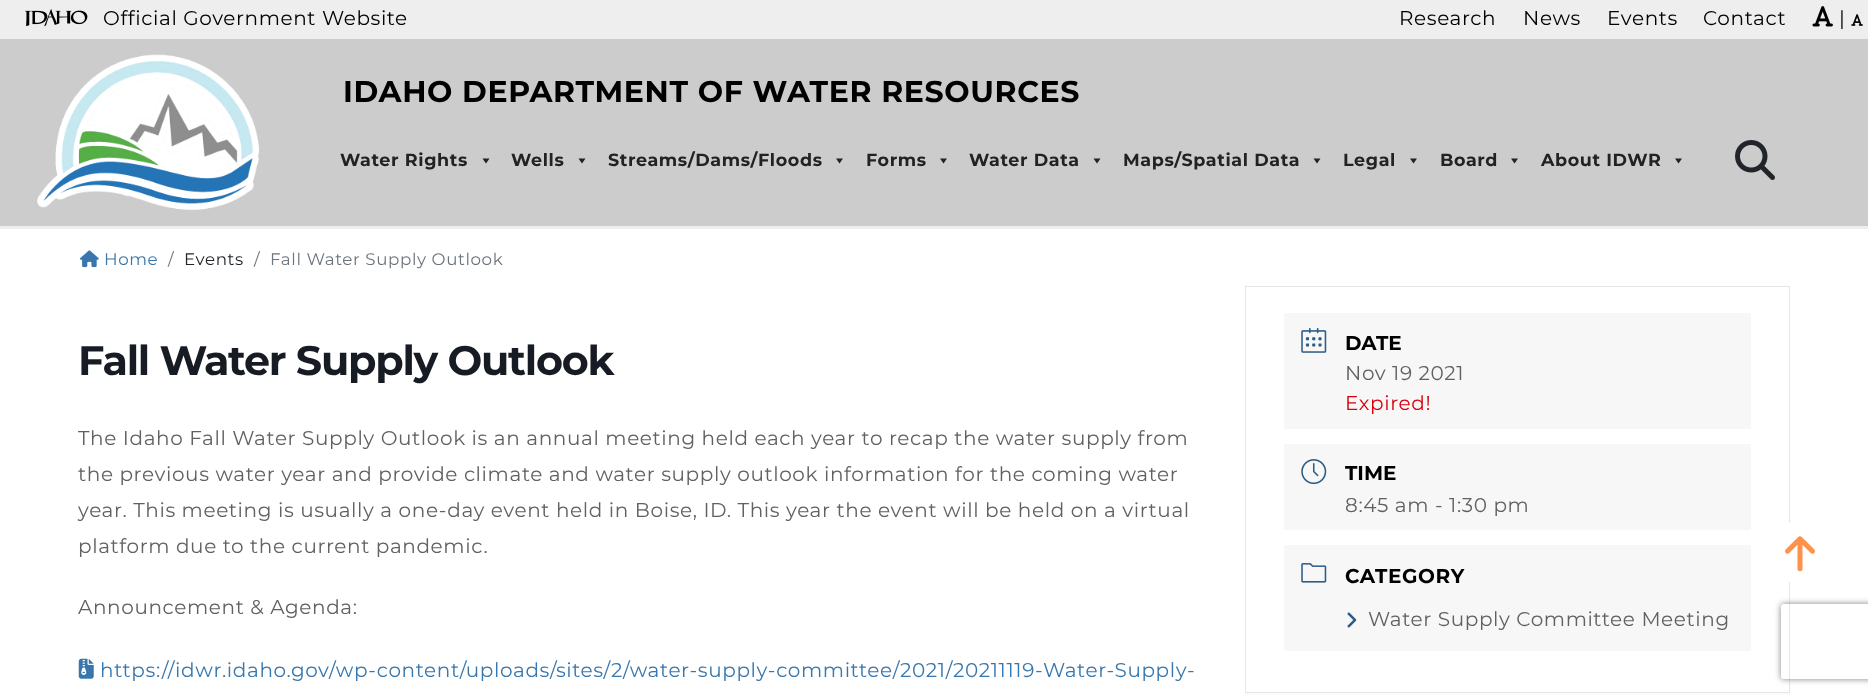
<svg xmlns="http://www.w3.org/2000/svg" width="1868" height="696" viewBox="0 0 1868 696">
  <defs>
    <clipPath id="clip1"><path d="M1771 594H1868V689H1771ZM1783.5 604H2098.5C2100 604 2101 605 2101 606.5V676.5C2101 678 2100 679 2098.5 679H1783.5C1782 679 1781 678 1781 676.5V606.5C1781 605 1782 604 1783.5 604Z" clip-rule="evenodd"/></clipPath>
    <filter id="blur1" x="-50%" y="-200%" width="200%" height="500%"><feGaussianBlur stdDeviation="3"/></filter>
  </defs>
  <rect width="100%" height="100%" fill="#ffffff"/>
  <rect x="0" y="0" width="1868" height="39" fill="#eeeeee"/>
  <image x="25" y="9" width="63" height="17" href="img1.png"/>
  <text x="103" y="25" font-family="Montserrat" font-size="20" letter-spacing="0.62" fill="#000000">Official Government Website</text>
  <text x="1399" y="25" font-family="Montserrat" font-size="20" letter-spacing="0.62" fill="#000000">Research</text>
  <text x="1523" y="25" font-family="Montserrat" font-size="20" letter-spacing="0.62" fill="#000000">News</text>
  <text x="1607" y="25" font-family="Montserrat" font-size="20" letter-spacing="0.62" fill="#000000">Events</text>
  <text x="1703" y="25" font-family="Montserrat" font-size="20" letter-spacing="0.62" fill="#000000">Contact</text>
  <image x="1812" y="6" width="21" height="21" href="img2.png"/>
  <text x="1839" y="25" font-family="Montserrat" font-size="20" letter-spacing="0.62" fill="#000000">|</text>
  <image x="1851" y="14" width="12" height="12" href="img3.png"/>
  <rect x="0" y="39" width="1868" height="187" fill="#cccccc"/>
  <rect x="0" y="226" width="1868" height="3" fill="#eeeeee"/>
  <image x="37" y="54" width="222" height="156" href="img4.png"/>
  <text x="343" y="102" font-family="Montserrat" font-size="30" font-weight="bold" letter-spacing="0.62" fill="#000000">IDAHO DEPARTMENT OF WATER RESOURCES</text>
  <text x="340" y="166" font-family="Montserrat" font-size="17.5" font-weight="bold" letter-spacing="0.62" fill="#222222">Water Rights</text>
  <path d="M489.5 158.5L486 163.5L482.5 158.5Z" fill="#222222"/>
  <text x="511" y="166" font-family="Montserrat" font-size="17.5" font-weight="bold" letter-spacing="0.62" fill="#222222">Wells</text>
  <path d="M585.5 158.5L582 163.5L578.5 158.5Z" fill="#222222"/>
  <text x="608" y="166" font-family="Montserrat" font-size="17.5" font-weight="bold" letter-spacing="0.62" fill="#222222">Streams/Dams/Floods</text>
  <path d="M843 158.5L839.5 163.5L836 158.5Z" fill="#222222"/>
  <text x="866" y="166" font-family="Montserrat" font-size="17.5" font-weight="bold" letter-spacing="0.62" fill="#222222">Forms</text>
  <path d="M947 158.5L943.5 163.5L940 158.5Z" fill="#222222"/>
  <text x="969" y="166" font-family="Montserrat" font-size="17.5" font-weight="bold" letter-spacing="0.62" fill="#222222">Water Data</text>
  <path d="M1100.5 158.5L1097 163.5L1093.5 158.5Z" fill="#222222"/>
  <text x="1123" y="166" font-family="Montserrat" font-size="17.5" font-weight="bold" letter-spacing="0.62" fill="#222222">Maps/Spatial Data</text>
  <path d="M1320.5 158.5L1317 163.5L1313.5 158.5Z" fill="#222222"/>
  <text x="1343" y="166" font-family="Montserrat" font-size="17.5" font-weight="bold" letter-spacing="0.62" fill="#222222">Legal</text>
  <path d="M1417 158.5L1413.5 163.5L1410 158.5Z" fill="#222222"/>
  <text x="1440" y="166" font-family="Montserrat" font-size="17.5" font-weight="bold" letter-spacing="0.62" fill="#222222">Board</text>
  <path d="M1518 158.5L1514.5 163.5L1511 158.5Z" fill="#222222"/>
  <text x="1541" y="166" font-family="Montserrat" font-size="17.5" font-weight="bold" letter-spacing="0.62" fill="#222222">About IDWR</text>
  <path d="M1682 158.5L1678.5 163.5L1675 158.5Z" fill="#222222"/>
  <image x="1735" y="140" width="40" height="40" href="img5.png"/>
  <image x="80" y="250" width="19" height="18" href="img6.png"/>
  <text x="104" y="265" font-family="Montserrat" font-size="16.7" letter-spacing="0.62" fill="#3777ad">Home</text>
  <text x="168" y="265" font-family="Montserrat" font-size="16.7" letter-spacing="0.62" fill="#6c757d">/</text>
  <text x="184" y="265" font-family="Montserrat" font-size="16.7" letter-spacing="0.62" fill="#212529">Events</text>
  <text x="254" y="265" font-family="Montserrat" font-size="16.7" letter-spacing="0.62" fill="#6c757d">/</text>
  <text x="270" y="265" font-family="Montserrat" font-size="16.7" letter-spacing="0.62" fill="#6c757d">Fall Water Supply Outlook</text>
  <text x="78" y="375" font-family="Montserrat" font-size="41.25" font-weight="bold" letter-spacing="-1.25" fill="#171c24">Fall Water Supply Outlook</text>
  <text x="78" y="445" font-family="Montserrat" font-size="20" letter-spacing="0.62" fill="#616161">The Idaho Fall Water Supply Outlook is an annual meeting held each year to recap the water supply from</text>
  <text x="78" y="481" font-family="Montserrat" font-size="20" letter-spacing="0.62" fill="#616161">the previous water year and provide climate and water supply outlook information for the coming water</text>
  <text x="78" y="517" font-family="Montserrat" font-size="20" letter-spacing="0.62" fill="#616161">year. This meeting is usually a one-day event held in Boise, ID. This year the event will be held on a virtual</text>
  <text x="78" y="553" font-family="Montserrat" font-size="20" letter-spacing="0.62" fill="#616161">platform due to the current pandemic.</text>
  <text x="78" y="614" font-family="Montserrat" font-size="20" letter-spacing="0.62" fill="#616161">Announcement &amp; Agenda:</text>
  <image x="78" y="658" width="16" height="21" href="img7.png"/>
  <text x="100" y="677" font-family="Montserrat" font-size="20" letter-spacing="0.62" fill="#3777ad">https://idwr.idaho.gov/wp-content/uploads/sites/2/water-supply-committee/2021/20211119-Water-Supply-</text>
  <rect x="1245" y="693" width="545" height="2" fill="#fbfbfb"/>
  <rect x="1245.5" y="286.5" width="544" height="406" fill="none" stroke="#e6e6e6"/>
  <rect x="1284" y="313" width="467" height="116" fill="#f7f7f7"/>
  <image x="1301" y="327" width="26" height="26" href="img8.png"/>
  <text x="1345" y="350" font-family="Montserrat" font-size="20" font-weight="bold" fill="#000000">DATE</text>
  <text x="1345" y="380" font-family="Montserrat" font-size="20" letter-spacing="0.62" fill="#616161">Nov 19 2021</text>
  <text x="1345" y="410" font-family="Montserrat" font-size="20" letter-spacing="0.62" fill="#d8000c">Expired!</text>
  <rect x="1284" y="444" width="467" height="86" fill="#f7f7f7"/>
  <image x="1301" y="459" width="26" height="26" href="img9.png"/>
  <text x="1345" y="480" font-family="Montserrat" font-size="20" font-weight="bold" fill="#000000">TIME</text>
  <text x="1345" y="512" font-family="Montserrat" font-size="20" letter-spacing="0.62" fill="#616161">8:45 am - 1:30 pm</text>
  <rect x="1284" y="545" width="467" height="106" fill="#f7f7f7"/>
  <image x="1301" y="563" width="26" height="20" href="img10.png"/>
  <text x="1345" y="583" font-family="Montserrat" font-size="20" font-weight="bold" letter-spacing="0.62" fill="#000000">CATEGORY</text>
  <image x="1347" y="612" width="10" height="16" href="img11.png"/>
  <text x="1368" y="626" font-family="Montserrat" font-size="20" letter-spacing="0.62" fill="#616161">Water Supply Committee Meeting</text>
  <rect x="1769" y="521" width="62" height="63" rx="31" fill="#ffffff"/>
  <image x="1785" y="536" width="30" height="36" href="img12.png"/>
  <g clip-path="url(#clip1)">
    <rect x="1781" y="604" width="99" height="75" rx="2.5" fill="#808080" filter="url(#blur1)"/>
  </g>
</svg>
